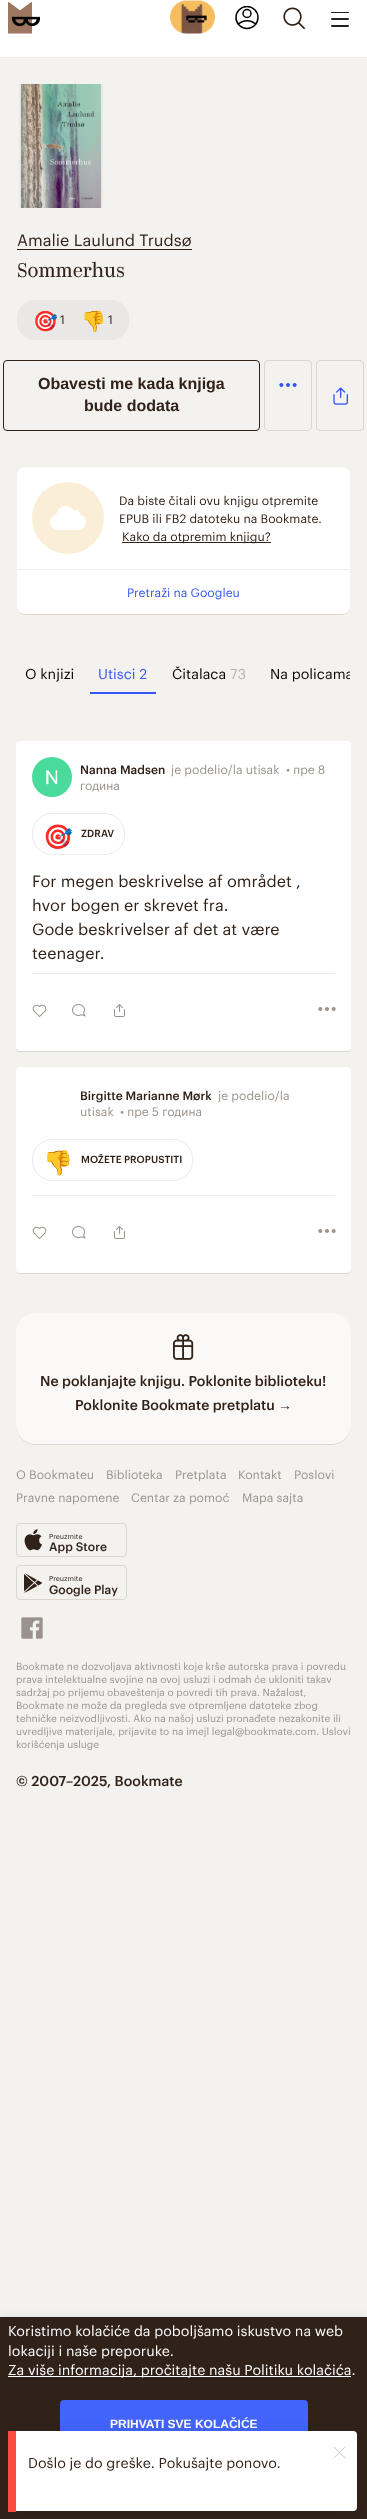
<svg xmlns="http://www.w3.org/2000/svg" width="367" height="2519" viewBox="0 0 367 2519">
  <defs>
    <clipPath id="clip1"><rect x="235" y="6" width="24" height="24"/></clipPath>
    <clipPath id="clip2"><rect x="17" y="84" width="88" height="124"/></clipPath>
    <clipPath id="clip3"><rect x="17" y="654" width="333" height="52"/></clipPath>
    <filter id="blur1" x="-50%" y="-200%" width="200%" height="500%"><feGaussianBlur stdDeviation="5"/></filter>
    <filter id="blur2" x="-50%" y="-200%" width="200%" height="500%"><feGaussianBlur stdDeviation="10"/></filter>
  </defs>
  <rect width="100%" height="100%" fill="#f4f2ef"/>
  <rect x="0" y="0" width="367" height="57" fill="#ffffff"/>
  <rect x="0" y="57" width="367" height="1" fill="#eeebe7"/>
  <image x="8" y="2" width="32" height="32" href="img1.png"/>
  <image x="170" y="0" width="45" height="34" href="img2.png"/>
  <g clip-path="url(#clip1)">
    <circle cx="247" cy="17.5" r="11" fill="none" stroke="#000000" stroke-width="1.5"/>
  </g>
  <circle cx="247" cy="13.5" r="4" fill="none" stroke="#000000" stroke-width="1.5"/>
  <path d="M238 24.5C243 19.5 251 19.5 256 24.5" fill="none" stroke="#000000" stroke-width="1.5"/>
  <image x="283" y="7" width="22" height="23" href="img3.png"/>
  <rect x="331" y="12" width="18" height="1" rx="0.5" fill="#22201f"/>
  <rect x="331" y="18" width="18" height="2" rx="1" fill="#22201f"/>
  <rect x="331" y="25" width="18" height="2" rx="1" fill="#22201f"/>
  <image x="21" y="84" width="80" height="124" href="img4.png"/>
  <g clip-path="url(#clip2)">
    <rect x="20" y="83" width="82" height="126" fill="none" stroke="#eae8e5" stroke-width="2"/>
  </g>
  <text x="17" y="246" font-family="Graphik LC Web" font-size="16" fill="#302119">Amalie Laulund Trudsø</text>
  <rect x="17" y="249" width="175" height="1" fill="#302119"/>
  <text x="17" y="277" font-family="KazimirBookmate" font-size="20" fill="#302119">Sommerhus</text>
  <rect x="17" y="300" width="112" height="40" rx="18" fill="#eae8e6"/>
  <text x="33" y="328" font-family="Noto Color Emoji" font-size="20" fill="#302119">🎯</text>
  <text x="60" y="324" font-family="Graphik LC Web" font-size="12" fill="#302119">1</text>
  <text x="81" y="328" font-family="Noto Color Emoji" font-size="20" fill="#302119">👎</text>
  <text x="108" y="324" font-family="Graphik LC Web" font-size="12" fill="#302119">1</text>
  <rect x="3.5" y="360.5" width="256" height="70" rx="3.5" fill="none" stroke="#302119"/>
  <text x="38" y="389" font-family="Liberation Sans" font-size="16" font-weight="bold" fill="#302119">Obavesti me kada knjiga</text>
  <text x="84" y="411" font-family="Liberation Sans" font-size="16" font-weight="bold" fill="#302119">bude dodata</text>
  <rect x="264.5" y="360.5" width="47" height="70" rx="3.5" fill="none" stroke="#ddd6cf"/>
  <image x="279" y="383" width="18" height="4" href="img5.png"/>
  <rect x="316.5" y="360.5" width="47" height="70" rx="3.5" fill="none" stroke="#ddd6cf"/>
  <image x="333" y="387" width="15" height="18" href="img6.png"/>
  <path d="M17 606V607C17 611 21 615 25 615H342C346 615 350 611 350 607V606C350 610 346 614 342 614H25C21 614 17 610 17 606Z" fill="#ddd6cf"/>
  <rect x="17" y="467" width="333" height="147" rx="8" fill="#ffffff"/>
  <circle cx="68" cy="518" r="36" fill="#faefd6"/>
  <image x="50" y="506" width="36" height="24" href="img7.png"/>
  <text x="119" y="505" font-family="Graphik LC Web" font-size="12" fill="#302119">Da biste čitali ovu knjigu otpremite</text>
  <text x="119" y="523" font-family="Graphik LC Web" font-size="12" fill="#302119">EPUB ili FB2 datoteku na Bookmate.</text>
  <rect x="122" y="542" width="149" height="1" fill="#302119"/>
  <text x="122" y="541" font-family="Graphik LC Web" font-size="12" fill="#302119">Kako da otpremim knjigu?</text>
  <rect x="17" y="569" width="333" height="1" fill="#eeebe7"/>
  <text x="127" y="597" font-family="Graphik LC Web" font-size="12" fill="#3456f3">Pretraži na Googleu</text>
  <text x="25" y="679" font-family="Graphik LC Web" font-size="14" fill="#000000">O knjizi</text>
  <rect x="90" y="692" width="66" height="2" fill="#3456f3"/>
  <text x="98" y="679" font-family="Graphik LC Web" font-size="14" fill="#3456f3">Utisci 2</text>
  <text x="172" y="679" font-family="Graphik LC Web" font-size="14" fill="#000000">Čitalaca</text>
  <text x="230" y="679" font-family="Graphik LC Web" font-size="14" fill="#b8b3af">73</text>
  <g clip-path="url(#clip3)">
    <text x="270" y="679" font-family="Graphik LC Web" font-size="14" fill="#000000">Na policama</text>
  </g>
  <path d="M16 1047C16 1050 17 1052 20 1052H347C350 1052 351 1050 351 1047C351 1049 349 1051 347 1051H20C18 1051 16 1049 16 1047Z" fill="#ddd6cf"/>
  <rect x="16" y="741" width="335" height="310" rx="4" fill="#ffffff"/>
  <image x="32" y="757" width="40" height="40" href="img8.png"/>
  <text x="80" y="774" font-family="Graphik LC Web" font-size="12" font-weight="500" fill="#302119">Nanna Madsen</text>
  <text x="171" y="774" font-family="Graphik LC Web" font-size="12" fill="#9a938d">je podelio/la utisak</text>
  <text x="286" y="774" font-family="Graphik LC Web" font-size="12" fill="#9a938d">• пре 8</text>
  <text x="80" y="790" font-family="Graphik LC Web" font-size="12" fill="#9a938d">година</text>
  <rect x="32.5" y="813.5" width="92" height="41" rx="19.5" fill="none" stroke="#eeebe7"/>
  <text x="43" y="845" font-family="Noto Color Emoji" font-size="24" font-weight="bold" fill="#302119">🎯</text>
  <text x="81" y="837" font-family="Graphik LC Web" font-size="10" font-weight="500" fill="#302119">ZDRAV</text>
  <text x="32" y="887" font-family="Graphik LC Web" font-size="16" fill="#302119">For megen beskrivelse af området ,</text>
  <text x="32" y="911" font-family="Graphik LC Web" font-size="16" fill="#302119">hvor bogen er skrevet fra.</text>
  <text x="32" y="935" font-family="Graphik LC Web" font-size="16" fill="#302119">Gode beskrivelser af det at være</text>
  <text x="32" y="959" font-family="Graphik LC Web" font-size="16" fill="#302119">teenager.</text>
  <rect x="32" y="973" width="303" height="1" fill="#eeebe7"/>
  <image x="32" y="1004" width="15" height="13" href="img9.png"/>
  <image x="72" y="1004" width="14" height="13" href="img10.png"/>
  <image x="114" y="1004" width="11" height="13" href="img11.png"/>
  <image x="318" y="1007" width="18" height="4" href="img12.png"/>
  <path d="M16 1269C16 1272 17 1274 20 1274H347C350 1274 351 1272 351 1269C351 1271 349 1273 347 1273H20C18 1273 16 1271 16 1269Z" fill="#ddd6cf"/>
  <rect x="16" y="1067" width="335" height="206" rx="4" fill="#ffffff"/>
  <text x="80" y="1100" font-family="Graphik LC Web" font-size="12" font-weight="500" fill="#302119">Birgitte Marianne Mørk</text>
  <text x="218" y="1100" font-family="Graphik LC Web" font-size="12" fill="#9a938d">je podelio/la</text>
  <text x="80" y="1116" font-family="Graphik LC Web" font-size="12" fill="#9a938d">utisak</text>
  <text x="120" y="1116" font-family="Graphik LC Web" font-size="12" fill="#9a938d">• пре 5 година</text>
  <rect x="32.5" y="1139.5" width="160" height="41" rx="19.5" fill="none" stroke="#eeebe7"/>
  <text x="43" y="1171" font-family="Noto Color Emoji" font-size="24" font-weight="bold" fill="#302119">👎</text>
  <text x="81" y="1163" font-family="Graphik LC Web" font-size="10" font-weight="500" fill="#302119">MOŽETE PROPUSTITI</text>
  <rect x="32" y="1195" width="303" height="1" fill="#eeebe7"/>
  <image x="32" y="1226" width="15" height="13" href="img9.png"/>
  <image x="72" y="1226" width="14" height="13" href="img10.png"/>
  <image x="114" y="1226" width="11" height="13" href="img11.png"/>
  <image x="318" y="1229" width="18" height="4" href="img12.png"/>
  <path d="M16 1424V1425C16 1436 25 1445 36 1445H331C342 1445 351 1436 351 1425V1424C351 1435 342 1444 331 1444H36C25 1444 16 1435 16 1424Z" fill="#ddd6cf"/>
  <rect x="16" y="1313" width="335" height="131" rx="20" fill="#faf9f7"/>
  <image x="173" y="1334" width="21" height="26" href="img13.png"/>
  <text x="40" y="1386" font-family="Graphik LC Web" font-size="14" font-weight="500" fill="#302119">Ne poklanjajte knjigu. Poklonite biblioteku!</text>
  <text x="75" y="1410" font-family="Graphik LC Web" font-size="14" font-weight="500" fill="#302119">Poklonite Bookmate pretplatu</text>
  <text x="278" y="1410" font-family="Liberation Sans" font-size="14" font-weight="bold" fill="#302119">→</text>
  <text x="16" y="1479" font-family="Graphik LC Web" font-size="12" fill="#9a938d">O Bookmateu</text>
  <text x="106" y="1479" font-family="Graphik LC Web" font-size="12" fill="#9a938d">Biblioteka</text>
  <text x="175" y="1479" font-family="Graphik LC Web" font-size="12" fill="#9a938d">Pretplata</text>
  <text x="238" y="1479" font-family="Graphik LC Web" font-size="12" fill="#9a938d">Kontakt</text>
  <text x="294" y="1479" font-family="Graphik LC Web" font-size="12" fill="#9a938d">Poslovi</text>
  <text x="16" y="1502" font-family="Graphik LC Web" font-size="12" fill="#9a938d">Pravne napomene</text>
  <text x="131" y="1502" font-family="Graphik LC Web" font-size="12" fill="#9a938d">Centar za pomoć</text>
  <text x="242" y="1502" font-family="Graphik LC Web" font-size="12" fill="#9a938d">Mapa sajta</text>
  <rect x="16.5" y="1523.5" width="110" height="33" rx="3.5" fill="none" stroke="#ddd6cf"/>
  <image x="24" y="1529" width="18" height="22" href="img14.png"/>
  <text x="49" y="1539" font-family="Graphik LC Web" font-size="7" fill="#302119">Preuzmite</text>
  <text x="49" y="1551" font-family="Graphik LC Web" font-size="12" font-weight="500" fill="#302119">App Store</text>
  <rect x="16.5" y="1565.5" width="110" height="34" rx="3.5" fill="none" stroke="#ddd6cf"/>
  <image x="24" y="1573" width="18" height="20" href="img15.png"/>
  <text x="49" y="1581" font-family="Graphik LC Web" font-size="7" fill="#302119">Preuzmite</text>
  <text x="49" y="1594" font-family="Graphik LC Web" font-size="12" font-weight="500" fill="#302119">Google Play</text>
  <image x="21" y="1617" width="22" height="22" href="img16.png"/>
  <text x="16" y="1670" font-family="Graphik LC Web" font-size="10" fill="#9a938d">Bookmate ne dozvoljava aktivnosti koje krše autorska prava i povredu</text>
  <text x="16" y="1683" font-family="Graphik LC Web" font-size="10" fill="#9a938d">prava intelektualne svojine na ovoj usluzi i odmah će ukloniti takav</text>
  <text x="16" y="1696" font-family="Graphik LC Web" font-size="10" fill="#9a938d">sadržaj po prijemu obaveštenja o povredi tih prava. Nažalost,</text>
  <text x="16" y="1709" font-family="Graphik LC Web" font-size="10" fill="#9a938d">Bookmate ne može da pregleda sve otpremljene datoteke zbog</text>
  <text x="16" y="1722" font-family="Graphik LC Web" font-size="10" fill="#9a938d">tehničke neizvodljivosti. Ako na našoj usluzi pronađete nezakonite ili</text>
  <text x="16" y="1735" font-family="Graphik LC Web" font-size="10" fill="#9a938d">uvredljive materijale, prijavite to na imejl legal@bookmate.com. Uslovi</text>
  <text x="16" y="1748" font-family="Graphik LC Web" font-size="10" fill="#9a938d">korišćenja usluge</text>
  <text x="16" y="1786" font-family="Graphik LC Web" font-size="14" font-weight="500" fill="#302119">© 2007–2025, Bookmate</text>
  <rect x="0" y="2318" width="367" height="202" fill="#000000" fill-opacity="0.1" filter="url(#blur1)"/>
  <rect x="0" y="2317" width="367" height="202" fill="#302119"/>
  <text x="8" y="2336" font-family="Graphik LC Web" font-size="14" fill="#ffffff">Koristimo kolačiće da poboljšamo iskustvo na web</text>
  <text x="8" y="2356" font-family="Graphik LC Web" font-size="14" fill="#ffffff">lokaciji i naše preporuke.</text>
  <rect x="8" y="2376" width="343" height="1" fill="#ffffff"/>
  <text x="8" y="2375" font-family="Graphik LC Web" font-size="14" fill="#ffffff">Za više informacija, pročitajte našu Politiku kolačića.</text>
  <rect x="60" y="2400" width="248" height="48" rx="4" fill="#4264fd"/>
  <text x="110" y="2428" font-family="Liberation Sans" font-size="12" font-weight="bold" fill="#ffffff">PRIHVATI SVE KOLAČIĆE</text>
  <rect x="8" y="2433" width="349" height="80" rx="4" fill="#000000" fill-opacity="0.07" filter="url(#blur2)"/>
  <rect x="8" y="2431" width="349" height="80" rx="4" fill="#ffffff"/>
  <rect x="8" y="2431" width="8" height="81" fill="#fa4c3e"/>
  <image x="333" y="2446" width="13" height="13" href="img17.png"/>
  <text x="28" y="2468" font-family="Graphik LC Web" font-size="14" fill="#302119">Došlo je do greške. Pokušajte ponovo.</text>
</svg>
